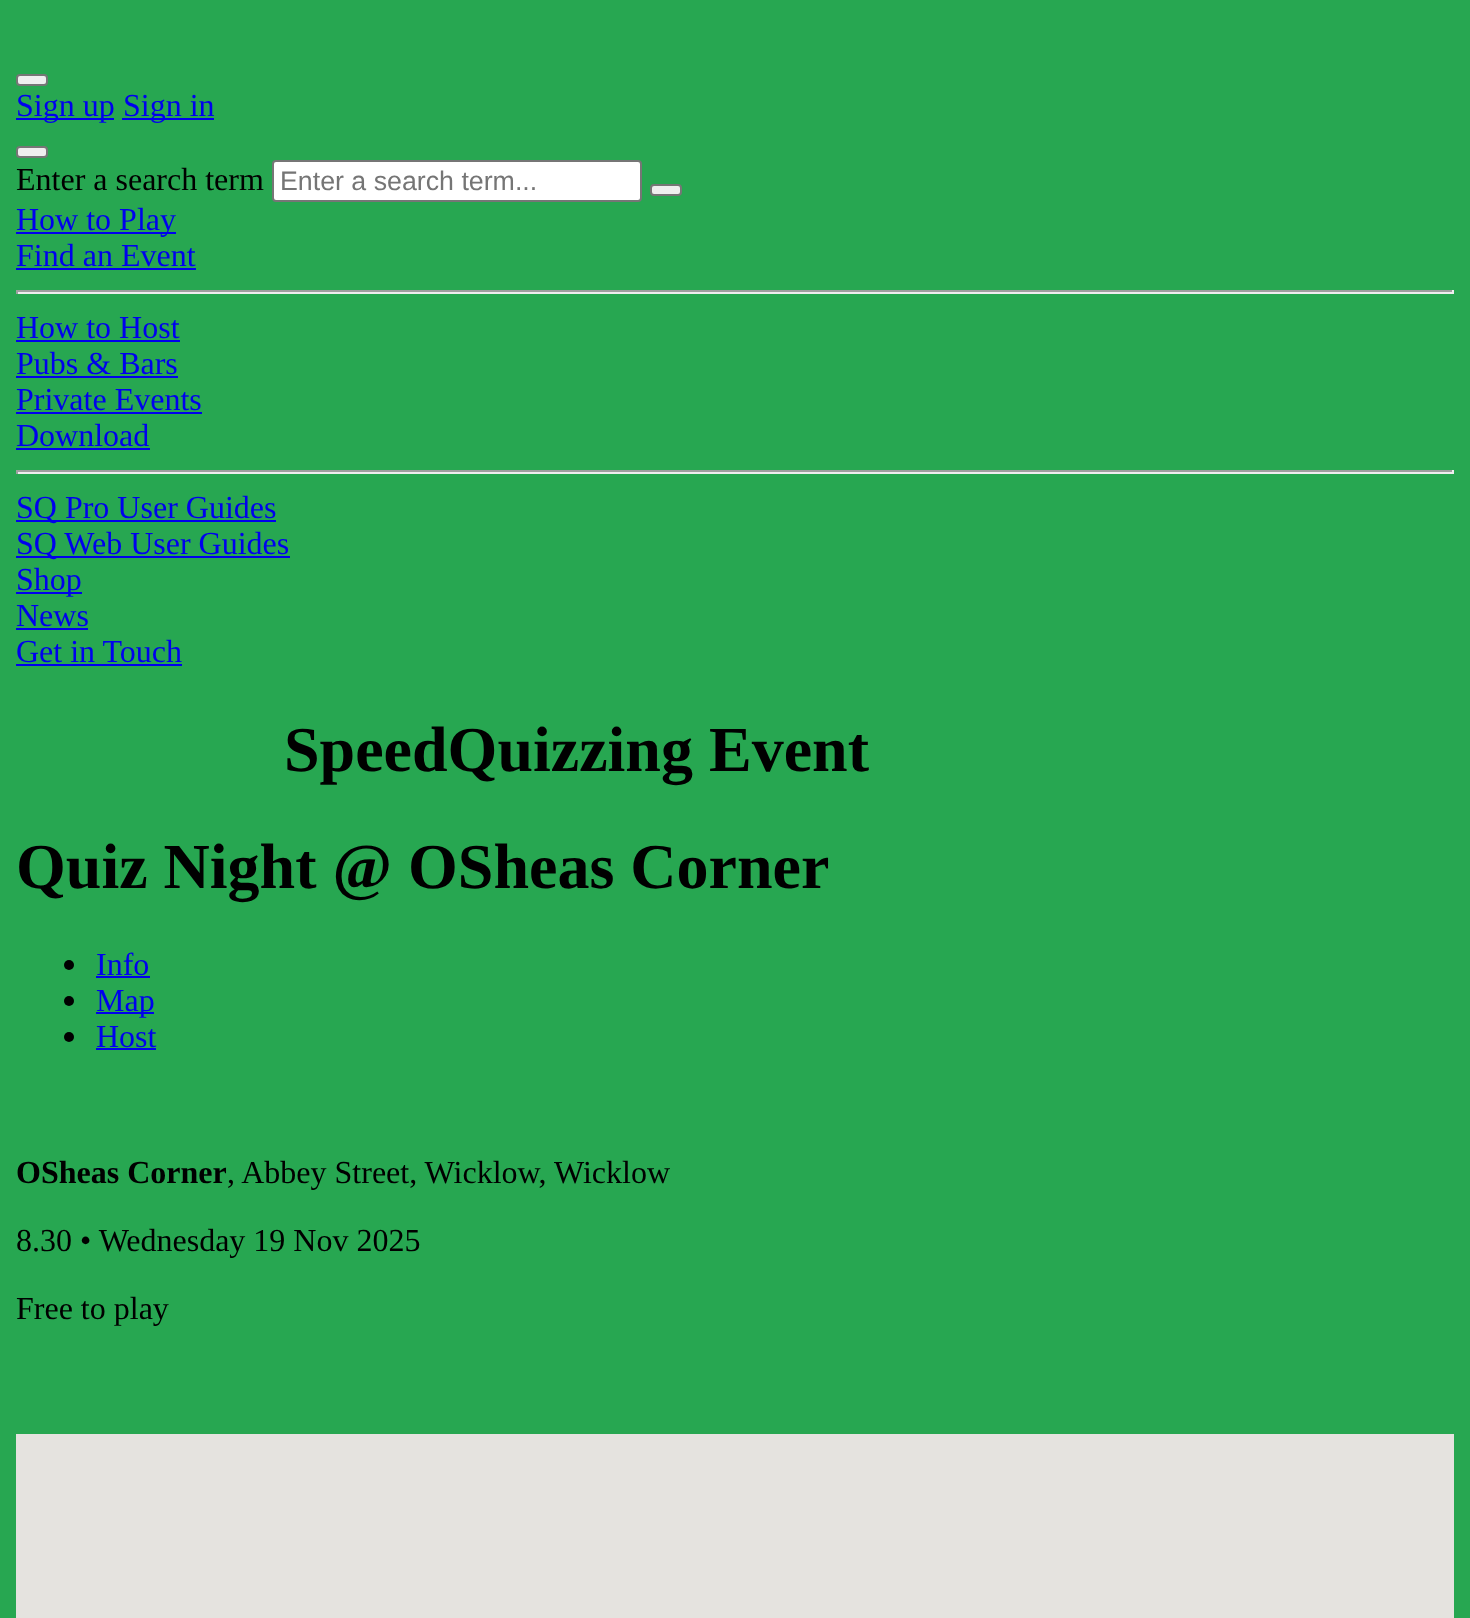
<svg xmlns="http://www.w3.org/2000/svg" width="1470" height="1618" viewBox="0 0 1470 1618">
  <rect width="100%" height="100%" fill="#27a751"/>
  <rect x="17" y="75" width="30" height="10" rx="3" fill="#efefef" stroke="#767676" stroke-width="2"/>
  <rect x="16" y="118" width="98" height="2" fill="#0000ee"/>
  <text x="16" y="116" font-family="Liberation Serif" font-size="32" fill="#0000ee">Sign up</text>
  <rect x="122" y="118" width="92" height="2" fill="#0000ee"/>
  <text x="123" y="116" font-family="Liberation Serif" font-size="32" fill="#0000ee">Sign in</text>
  <rect x="17" y="147" width="30" height="10" rx="3" fill="#efefef" stroke="#767676" stroke-width="2"/>
  <text x="16" y="190" font-family="Liberation Serif" font-size="32" fill="#000000">Enter a search term</text>
  <rect x="273" y="161" width="368" height="40" rx="3" fill="#ffffff" stroke="#767676" stroke-width="2"/>
  <text x="280" y="190" font-family="Liberation Sans" font-size="26.75" fill="#757575">Enter a search term...</text>
  <rect x="651" y="185" width="30" height="10" rx="3" fill="#efefef" stroke="#767676" stroke-width="2"/>
  <rect x="16" y="232" width="160" height="2" fill="#0000ee"/>
  <text x="16" y="230" font-family="Liberation Serif" font-size="32" fill="#0000ee">How to Play</text>
  <text x="16" y="266" font-family="Liberation Serif" font-size="32" fill="#0000ee">Find an Event</text>
  <rect x="16" y="268" width="180" height="2" fill="#0000ee"/>
  <rect x="16" y="290" width="1438" height="2" fill="#9f9f9f"/>
  <rect x="1452" y="290" width="2" height="4" fill="#eeeeee"/>
  <rect x="16" y="292" width="1438" height="2" fill="#eeeeee"/>
  <rect x="16" y="290" width="2" height="4" fill="#9f9f9f"/>
  <text x="16" y="338" font-family="Liberation Serif" font-size="32" fill="#0000ee">How to Host</text>
  <rect x="16" y="340" width="164" height="2" fill="#0000ee"/>
  <text x="16" y="374" font-family="Liberation Serif" font-size="32" fill="#0000ee">Pubs &amp; Bars</text>
  <rect x="16" y="376" width="162" height="2" fill="#0000ee"/>
  <text x="16" y="410" font-family="Liberation Serif" font-size="32" fill="#0000ee">Private Events</text>
  <rect x="16" y="412" width="186" height="2" fill="#0000ee"/>
  <text x="16" y="446" font-family="Liberation Serif" font-size="32" fill="#0000ee">Download</text>
  <rect x="16" y="448" width="134" height="2" fill="#0000ee"/>
  <rect x="16" y="470" width="1438" height="2" fill="#9f9f9f"/>
  <rect x="1452" y="470" width="2" height="4" fill="#eeeeee"/>
  <rect x="16" y="472" width="1438" height="2" fill="#eeeeee"/>
  <rect x="16" y="470" width="2" height="4" fill="#9f9f9f"/>
  <rect x="16" y="520" width="260" height="2" fill="#0000ee"/>
  <text x="16" y="518" font-family="Liberation Serif" font-size="32" fill="#0000ee">SQ Pro User Guides</text>
  <rect x="16" y="556" width="274" height="2" fill="#0000ee"/>
  <text x="16" y="554" font-family="Liberation Serif" font-size="32" fill="#0000ee">SQ Web User Guides</text>
  <rect x="16" y="592" width="66" height="2" fill="#0000ee"/>
  <text x="16" y="590" font-family="Liberation Serif" font-size="32" fill="#0000ee">Shop</text>
  <text x="16" y="626" font-family="Liberation Serif" font-size="32" fill="#0000ee">News</text>
  <rect x="16" y="628" width="72" height="2" fill="#0000ee"/>
  <text x="16" y="662" font-family="Liberation Serif" font-size="32" fill="#0000ee">Get in Touch</text>
  <rect x="16" y="664" width="166" height="2" fill="#0000ee"/>
  <text x="284" y="771" font-family="Liberation Serif" font-size="64" font-weight="bold" fill="#000000">SpeedQuizzing Event</text>
  <text x="16" y="888" font-family="Liberation Serif" font-size="64" font-weight="bold" fill="#000000">Quiz Night @ OSheas Corner</text>
  <circle cx="69" cy="965" r="5" fill="#000000"/>
  <text x="96" y="975" font-family="Liberation Serif" font-size="32" fill="#0000ee">Info</text>
  <rect x="96" y="976" width="54" height="2" fill="#0000ee"/>
  <circle cx="69" cy="1001" r="5" fill="#000000"/>
  <rect x="96" y="1012" width="58" height="2" fill="#0000ee"/>
  <text x="96" y="1011" font-family="Liberation Serif" font-size="32" fill="#0000ee">Map</text>
  <circle cx="69" cy="1037" r="5" fill="#000000"/>
  <text x="96" y="1047" font-family="Liberation Serif" font-size="32" fill="#0000ee">Host</text>
  <rect x="96" y="1048" width="60" height="2" fill="#0000ee"/>
  <text x="16" y="1183" font-family="Liberation Serif" font-size="32" font-weight="bold" fill="#000000">OSheas Corner</text>
  <text x="227" y="1183" font-family="Liberation Serif" font-size="32" fill="#000000">, Abbey Street, Wicklow, Wicklow</text>
  <text x="16" y="1251" font-family="Liberation Serif" font-size="32" fill="#000000">8.30 • Wednesday 19 Nov 2025</text>
  <text x="16" y="1319" font-family="Liberation Serif" font-size="32" fill="#000000">Free to play</text>
  <rect x="16" y="1434" width="1438" height="184" fill="#e5e3df"/>
</svg>
